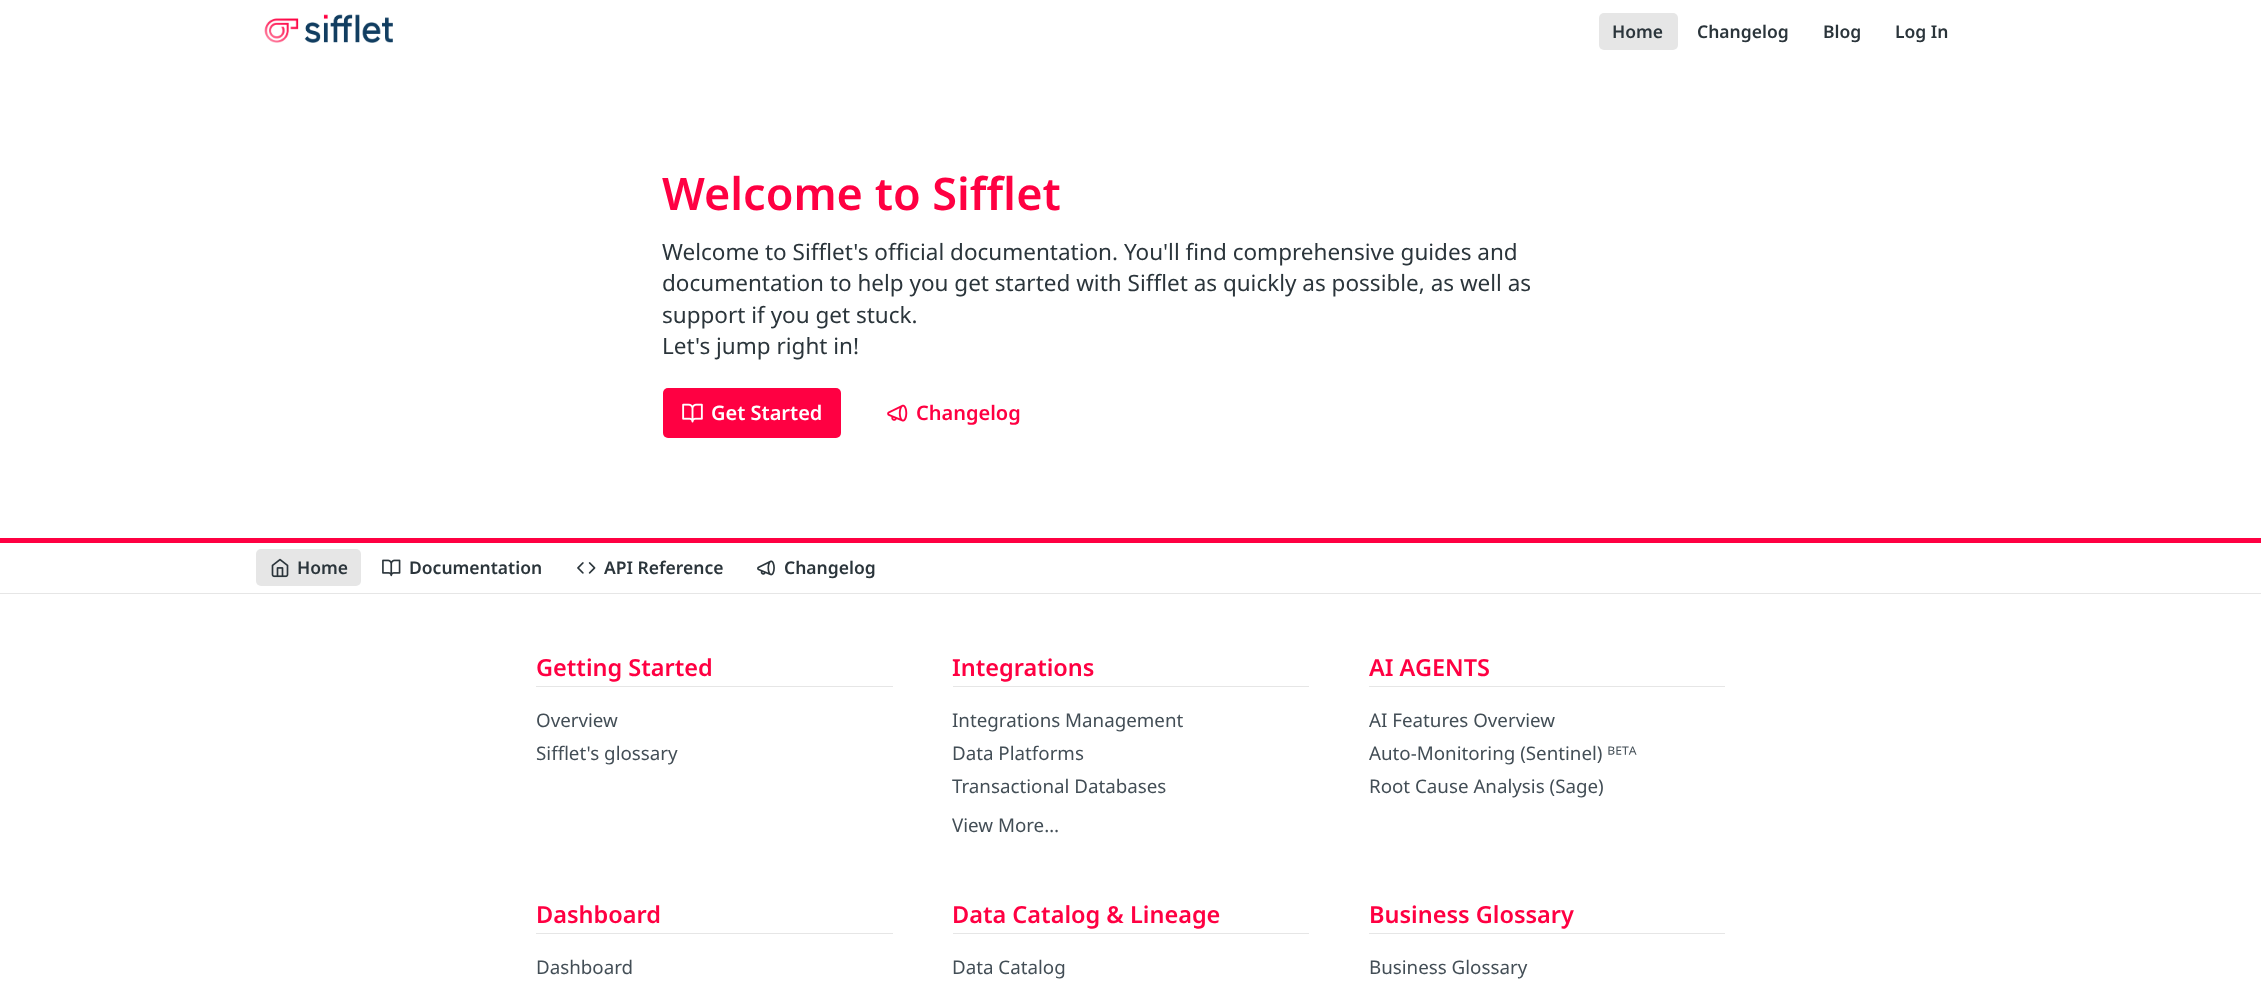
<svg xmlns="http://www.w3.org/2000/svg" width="2261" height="983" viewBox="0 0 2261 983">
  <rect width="100%" height="100%" fill="#ffffff"/>
  <rect x="0" y="593" width="2261" height="1" fill="#e6e6e6"/>
  <rect x="0" y="538" width="2261" height="5" fill="#ff0042"/>
  <image x="264" y="14" width="129" height="29" href="img1.png"/>
  <rect x="1599" y="13" width="79" height="37" rx="5" fill="#e6e6e6"/>
  <text x="1612" y="38" font-family="Noto Sans" font-size="17.5" font-weight="600" fill="#2b353b">Home</text>
  <text x="1697" y="38" font-family="Noto Sans" font-size="17.5" font-weight="600" fill="#2b353b">Changelog</text>
  <text x="1823" y="38" font-family="Noto Sans" font-size="17.5" font-weight="600" fill="#2b353b">Blog</text>
  <text x="1895" y="38" font-family="Noto Sans" font-size="17.5" font-weight="600" fill="#2b353b">Log In</text>
  <text x="662" y="210" font-family="Noto Sans" font-size="45" font-weight="600" fill="#ff0042">Welcome to Sifflet</text>
  <text x="662" y="260" font-family="Noto Sans" font-size="22.5" fill="#2b353b">Welcome to Sifflet's official documentation. You'll find comprehensive guides and</text>
  <text x="662" y="291" font-family="Noto Sans" font-size="22.5" fill="#2b353b">documentation to help you get started with Sifflet as quickly as possible, as well as</text>
  <text x="662" y="323" font-family="Noto Sans" font-size="22.5" fill="#2b353b">support if you get stuck.</text>
  <text x="662" y="354" font-family="Noto Sans" font-size="22.5" fill="#2b353b">Let's jump right in!</text>
  <rect x="663" y="388" width="178" height="50" rx="5" fill="#ff0042"/>
  <image x="682" y="403" width="21" height="20" href="img2.png"/>
  <text x="711" y="420" font-family="Noto Sans" font-size="20" font-weight="600" fill="#ffffff">Get Started</text>
  <image x="887" y="404" width="21" height="18" href="img3.png"/>
  <text x="916" y="420" font-family="Noto Sans" font-size="20" font-weight="600" fill="#ff0042">Changelog</text>
  <rect x="256" y="549" width="105" height="37" rx="5" fill="#e6e6e6"/>
  <image x="271" y="558" width="18" height="20" href="img4.png"/>
  <text x="297" y="574" font-family="Noto Sans" font-size="17.5" font-weight="600" fill="#2b353b">Home</text>
  <image x="382" y="559" width="19" height="18" href="img5.png"/>
  <text x="409" y="574" font-family="Noto Sans" font-size="17.5" font-weight="600" fill="#2b353b">Documentation</text>
  <image x="577" y="562" width="19" height="12" href="img6.png"/>
  <text x="604" y="574" font-family="Noto Sans" font-size="17.5" font-weight="600" fill="#2b353b">API Reference</text>
  <image x="757" y="560" width="18" height="16" href="img7.png"/>
  <text x="784" y="574" font-family="Noto Sans" font-size="17.5" font-weight="600" fill="#2b353b">Changelog</text>
  <rect x="536" y="686" width="357" height="1" fill="#e6e6e6"/>
  <text x="536" y="676" font-family="Noto Sans" font-size="23.5" font-weight="600" fill="#ff0042">Getting Started</text>
  <text x="536" y="727" font-family="Noto Sans" font-size="18.75" fill="#434e56">Overview</text>
  <text x="536" y="760" font-family="Noto Sans" font-size="18.75" fill="#434e56">Sifflet's glossary</text>
  <rect x="953" y="686" width="356" height="1" fill="#e6e6e6"/>
  <text x="952" y="676" font-family="Noto Sans" font-size="23.5" font-weight="600" fill="#ff0042">Integrations</text>
  <text x="952" y="727" font-family="Noto Sans" font-size="18.75" fill="#434e56">Integrations Management</text>
  <text x="952" y="760" font-family="Noto Sans" font-size="18.75" fill="#434e56">Data Platforms</text>
  <text x="952" y="793" font-family="Noto Sans" font-size="18.75" fill="#434e56">Transactional Databases</text>
  <text x="952" y="832" font-family="Noto Sans" font-size="18.75" fill="#434e56">View More…</text>
  <rect x="1369" y="686" width="356" height="1" fill="#e6e6e6"/>
  <text x="1369" y="676" font-family="Noto Sans" font-size="23.5" font-weight="600" fill="#ff0042">AI AGENTS</text>
  <text x="1369" y="727" font-family="Noto Sans" font-size="18.75" fill="#434e56">AI Features Overview</text>
  <text x="1369" y="760" font-family="Noto Sans" font-size="18.75" fill="#434e56">Auto-Monitoring (Sentinel) ᴮᴱᵀᴬ</text>
  <text x="1369" y="793" font-family="Noto Sans" font-size="18.75" fill="#434e56">Root Cause Analysis (Sage)</text>
  <rect x="536" y="933" width="357" height="1" fill="#e6e6e6"/>
  <text x="536" y="923" font-family="Noto Sans" font-size="23.5" font-weight="600" fill="#ff0042">Dashboard</text>
  <text x="536" y="974" font-family="Noto Sans" font-size="18.75" fill="#434e56">Dashboard</text>
  <rect x="953" y="933" width="356" height="1" fill="#e6e6e6"/>
  <text x="952" y="923" font-family="Noto Sans" font-size="23.5" font-weight="600" fill="#ff0042">Data Catalog &amp; Lineage</text>
  <text x="952" y="974" font-family="Noto Sans" font-size="18.75" fill="#434e56">Data Catalog</text>
  <rect x="1369" y="933" width="356" height="1" fill="#e6e6e6"/>
  <text x="1369" y="923" font-family="Noto Sans" font-size="23.5" font-weight="600" fill="#ff0042">Business Glossary</text>
  <text x="1369" y="974" font-family="Noto Sans" font-size="18.75" fill="#434e56">Business Glossary</text>
</svg>
